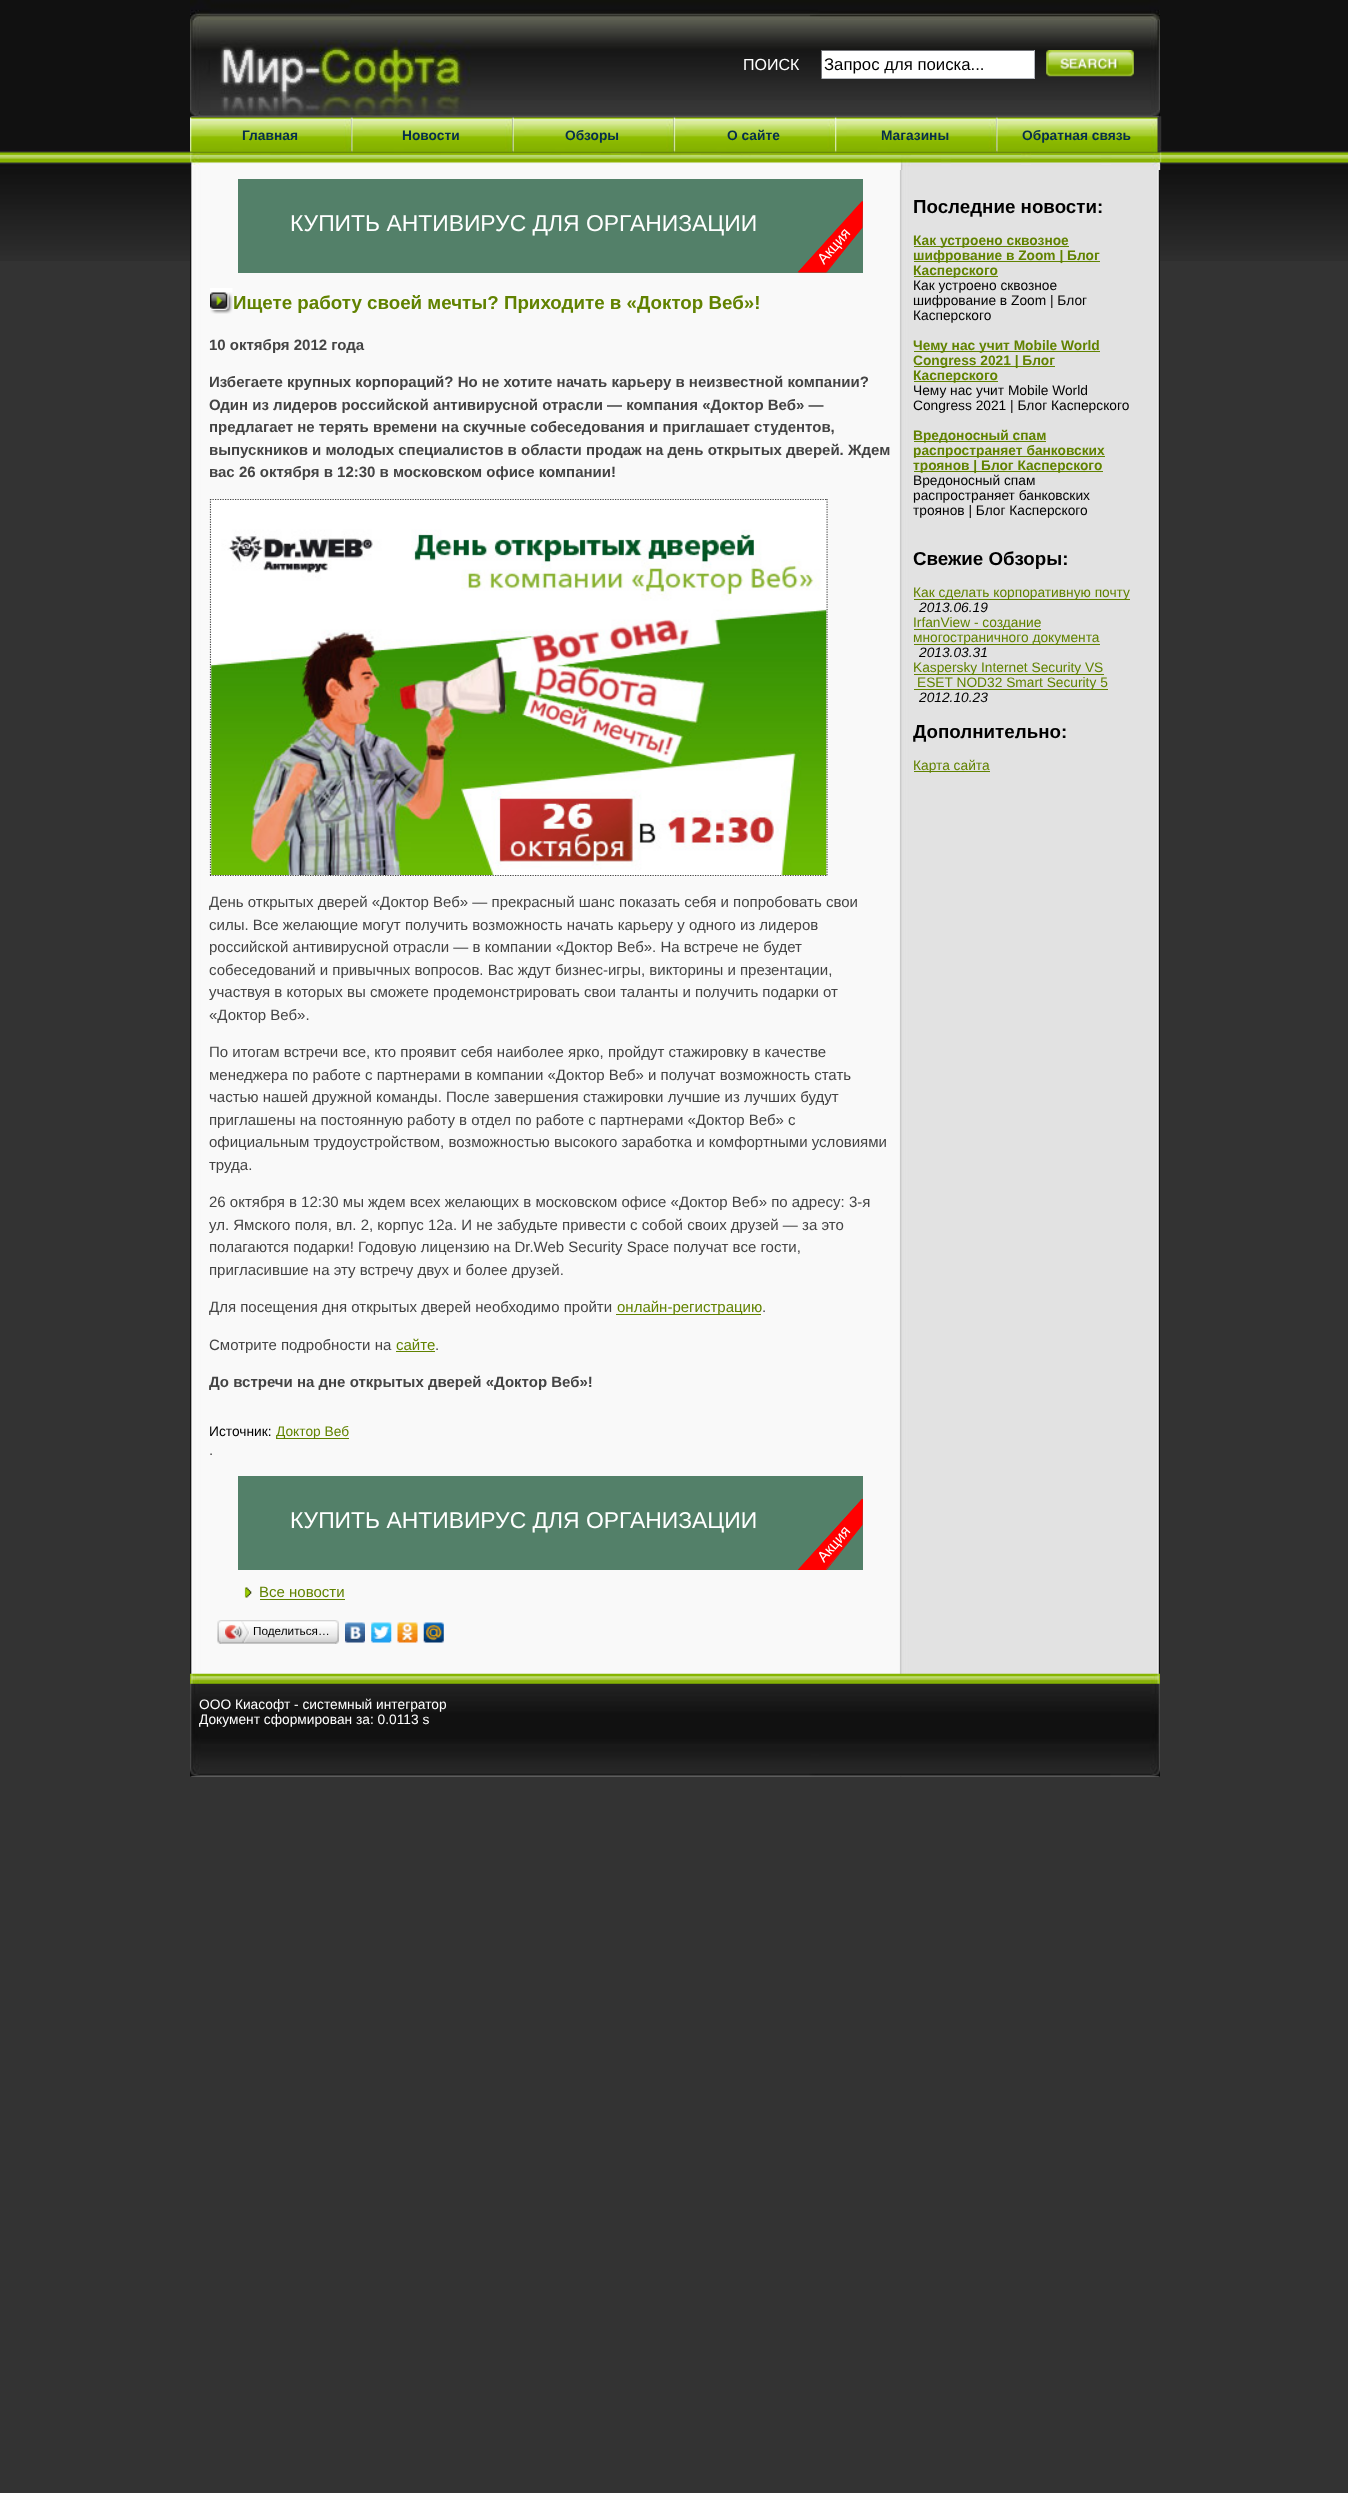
<svg xmlns="http://www.w3.org/2000/svg" width="1348" height="2493" viewBox="0 0 1348 2493">
  <rect width="100%" height="100%" fill="#333333"/>
  <image x="0" y="0" width="1348" height="261" href="img1.png"/>
  <image x="190" y="116" width="970" height="1661" href="img2.png"/>
  <image x="190" y="0" width="970" height="117" href="img3.png"/>
  <text x="743" y="70" font-family="Liberation Sans" font-size="16" fill="#ffffff">ПОИСК</text>
  <rect x="822" y="51" width="212" height="27" fill="#ffffff"/>
  <rect x="821" y="50" width="214" height="1" fill="#75767b"/>
  <rect x="1034" y="50" width="1" height="29" fill="#b6b9c0"/>
  <rect x="821" y="78" width="214" height="1" fill="#b6b9c0"/>
  <rect x="821" y="50" width="1" height="29" fill="#75767b"/>
  <text x="824" y="70" font-family="Liberation Sans" font-size="16.75" fill="#000000">Запрос для поиска...</text>
  <image x="1046" y="50" width="88" height="27" href="img4.png"/>
  <image x="190" y="116" width="972" height="54" href="img5.png"/>
  <image x="190" y="117" width="162" height="36" href="img6.png"/>
  <text x="242" y="140" font-family="Liberation Sans" font-size="13.75" font-weight="bold" fill="#062e4b">Главная</text>
  <image x="351" y="117" width="162" height="36" href="img7.png"/>
  <text x="402" y="140" font-family="Liberation Sans" font-size="13.75" font-weight="bold" fill="#062e4b">Новости</text>
  <image x="512" y="117" width="162" height="36" href="img8.png"/>
  <text x="565" y="140" font-family="Liberation Sans" font-size="13.75" font-weight="bold" fill="#062e4b">Обзоры</text>
  <image x="673" y="117" width="162" height="36" href="img9.png"/>
  <text x="727" y="140" font-family="Liberation Sans" font-size="13.75" font-weight="bold" fill="#062e4b">О сайте</text>
  <image x="835" y="117" width="162" height="36" href="img10.png"/>
  <text x="881" y="140" font-family="Liberation Sans" font-size="13.75" font-weight="bold" fill="#062e4b">Магазины</text>
  <image x="996" y="117" width="162" height="36" href="img11.png"/>
  <text x="1022" y="140" font-family="Liberation Sans" font-size="13.75" font-weight="bold" fill="#062e4b">Обратная связь</text>
  <rect x="238" y="179" width="625" height="94" fill="#538069"/>
  <path d="M826 272H798L862 201V228Z" fill="#ff0000"/>
  <path d="M826.5 272H798.5L862.5 201.5L862 227.5Z" fill="none" stroke="#ff0000"/>
  <text x="290" y="231" font-family="Liberation Sans" font-size="22.9" fill="#ffffff">КУПИТЬ АНТИВИРУС ДЛЯ ОРГАНИЗАЦИИ</text>
  <text x="824" y="265" transform="rotate(-49.3 824 265)" font-family="Liberation Sans" font-size="15" fill="#ffffff">Акция</text>
  <image x="210" y="288" width="23" height="26" href="img12.png"/>
  <text x="233" y="309" font-family="Liberation Sans" font-size="18.75" font-weight="bold" fill="#618200">Ищете работу своей мечты? Приходите в «Доктор Веб»!</text>
  <text x="209" y="350" font-family="Liberation Sans" font-size="15" font-weight="bold" fill="#444444">10 октября 2012 года</text>
  <text x="209" y="387" font-family="Liberation Sans" font-size="15" font-weight="bold" fill="#444444">Избегаете крупных корпораций? Но не хотите начать карьеру в неизвестной компании?</text>
  <text x="209" y="410" font-family="Liberation Sans" font-size="15" font-weight="bold" fill="#444444">Один из лидеров российской антивирусной отрасли — компания «Доктор Веб» —</text>
  <text x="209" y="432" font-family="Liberation Sans" font-size="15" font-weight="bold" fill="#444444">предлагает не терять времени на скучные собеседования и приглашает студентов,</text>
  <text x="209" y="455" font-family="Liberation Sans" font-size="15" font-weight="bold" fill="#444444">выпускников и молодых специалистов в области продаж на день открытых дверей. Ждем</text>
  <text x="209" y="477" font-family="Liberation Sans" font-size="15" font-weight="bold" fill="#444444">вас 26 октября в 12:30 в московском офисе компании!</text>
  <path d="M210 499.5H827.5" fill="none" stroke="#444444" stroke-width="1.2" stroke-dasharray="1.25 1.25"/>
  <path d="M827 499V876" fill="none" stroke="#444444" stroke-width="1.2" stroke-dasharray="1.25 1.25"/>
  <path d="M210 875.5H827.5" fill="none" stroke="#444444" stroke-width="1.2" stroke-dasharray="1.25 1.25"/>
  <path d="M210.5 499V876" fill="none" stroke="#444444" stroke-width="1.2" stroke-dasharray="1.25 1.25"/>
  <image x="211" y="500" width="616" height="375" href="img13.png"/>
  <text x="209" y="907" font-family="Liberation Sans" font-size="15" fill="#444444">День открытых дверей «Доктор Веб» — прекрасный шанс показать себя и попробовать свои</text>
  <text x="209" y="930" font-family="Liberation Sans" font-size="15" fill="#444444">силы. Все желающие могут получить возможность начать карьеру у одного из лидеров</text>
  <text x="209" y="952" font-family="Liberation Sans" font-size="15" fill="#444444">российской антивирусной отрасли — в компании «Доктор Веб». На встрече не будет</text>
  <text x="209" y="975" font-family="Liberation Sans" font-size="15" fill="#444444">собеседований и привычных вопросов. Вас ждут бизнес-игры, викторины и презентации,</text>
  <text x="209" y="997" font-family="Liberation Sans" font-size="15" fill="#444444">участвуя в которых вы сможете продемонстрировать свои таланты и получить подарки от</text>
  <text x="209" y="1020" font-family="Liberation Sans" font-size="15" fill="#444444">«Доктор Веб».</text>
  <text x="209" y="1057" font-family="Liberation Sans" font-size="15" fill="#444444">По итогам встречи все, кто проявит себя наиболее ярко, пройдут стажировку в качестве</text>
  <text x="209" y="1080" font-family="Liberation Sans" font-size="15" fill="#444444">менеджера по работе с партнерами в компании «Доктор Веб» и получат возможность стать</text>
  <text x="209" y="1102" font-family="Liberation Sans" font-size="15" fill="#444444">частью нашей дружной команды. После завершения стажировки лучшие из лучших будут</text>
  <text x="209" y="1125" font-family="Liberation Sans" font-size="15" fill="#444444">приглашены на постоянную работу в отдел по работе с партнерами «Доктор Веб» с</text>
  <text x="209" y="1147" font-family="Liberation Sans" font-size="15" fill="#444444">официальным трудоустройством, возможностью высокого заработка и комфортными условиями</text>
  <text x="209" y="1170" font-family="Liberation Sans" font-size="15" fill="#444444">труда.</text>
  <text x="209" y="1207" font-family="Liberation Sans" font-size="15" fill="#444444">26 октября в 12:30 мы ждем всех желающих в московском офисе «Доктор Веб» по адресу: 3-я</text>
  <text x="209" y="1230" font-family="Liberation Sans" font-size="15" fill="#444444">ул. Ямского поля, вл. 2, корпус 12а. И не забудьте привести с собой своих друзей — за это</text>
  <text x="209" y="1252" font-family="Liberation Sans" font-size="15" fill="#444444">полагаются подарки! Годовую лицензию на Dr.Web Security Space получат все гости,</text>
  <text x="209" y="1275" font-family="Liberation Sans" font-size="15" fill="#444444">пригласившие на эту встречу двух и более друзей.</text>
  <text x="209" y="1312" font-family="Liberation Sans" font-size="15" fill="#444444">Для посещения дня открытых дверей необходимо пройти</text>
  <rect x="616" y="1314" width="145" height="1" fill="#618200"/>
  <text x="617" y="1312" font-family="Liberation Sans" font-size="15" fill="#618200">онлайн-регистрацию</text>
  <text x="762" y="1312" font-family="Liberation Sans" font-size="15" fill="#444444">.</text>
  <text x="209" y="1350" font-family="Liberation Sans" font-size="15" fill="#444444">Смотрите подробности на</text>
  <text x="396" y="1350" font-family="Liberation Sans" font-size="15" fill="#618200">сайте</text>
  <rect x="396" y="1351" width="39" height="1" fill="#618200"/>
  <text x="435" y="1350" font-family="Liberation Sans" font-size="15" fill="#444444">.</text>
  <text x="209" y="1387" font-family="Liberation Sans" font-size="15" font-weight="bold" fill="#444444">До встречи на дне открытых дверей «Доктор Веб»!</text>
  <text x="209" y="1436" font-family="Liberation Sans" font-size="13.75" fill="#000000">Источник:</text>
  <rect x="276" y="1438" width="73" height="1" fill="#618200"/>
  <text x="276" y="1436" font-family="Liberation Sans" font-size="13.75" fill="#618200">Доктор Веб</text>
  <text x="209" y="1455" font-family="Liberation Sans" font-size="15" fill="#444444">.</text>
  <rect x="238" y="1476" width="625" height="94" fill="#538069"/>
  <path d="M826 1569L798 1570L862 1499V1525Z" fill="#ff0000"/>
  <path d="M826.5 1569.5H798.5L862.5 1499L862 1525Z" fill="none" stroke="#ff0000"/>
  <text x="290" y="1528" font-family="Liberation Sans" font-size="22.9" fill="#ffffff">КУПИТЬ АНТИВИРУС ДЛЯ ОРГАНИЗАЦИИ</text>
  <text x="824" y="1563" transform="rotate(-49.3 824 1563)" font-family="Liberation Sans" font-size="15" fill="#ffffff">Акция</text>
  <image x="244" y="1587" width="8" height="11" href="img14.png"/>
  <text x="259" y="1597" font-family="Liberation Sans" font-size="15" fill="#618200">Все новости</text>
  <rect x="260" y="1599" width="85" height="1" fill="#618200"/>
  <image x="221" y="1620" width="114" height="24" href="img15.png"/>
  <image x="217" y="1620" width="5" height="24" href="img16.png"/>
  <image x="225" y="1621" width="25" height="22" href="img17.png"/>
  <text x="253" y="1635" font-family="Liberation Sans" font-size="11.75" fill="#000000">Поделиться…</text>
  <image x="335" y="1620" width="4" height="24" href="img18.png"/>
  <image x="345" y="1622" width="20" height="21" href="img19.png"/>
  <image x="371" y="1622" width="21" height="21" href="img20.png"/>
  <image x="397" y="1622" width="21" height="21" href="img21.png"/>
  <image x="423" y="1622" width="21" height="21" href="img22.png"/>
  <text x="913" y="213" font-family="Liberation Sans" font-size="18.75" font-weight="bold" fill="#000000">Последние новости:</text>
  <rect x="914" y="246" width="155" height="1" fill="#618200"/>
  <text x="913" y="245" font-family="Liberation Sans" font-size="13.75" font-weight="bold" fill="#618200">Как устроено сквозное</text>
  <rect x="914" y="261" width="186" height="1" fill="#618200"/>
  <text x="913" y="260" font-family="Liberation Sans" font-size="13.75" font-weight="bold" fill="#618200">шифрование в Zoom | Блог</text>
  <rect x="914" y="276" width="84" height="1" fill="#618200"/>
  <text x="913" y="275" font-family="Liberation Sans" font-size="13.75" font-weight="bold" fill="#618200">Касперского</text>
  <text x="913" y="290" font-family="Liberation Sans" font-size="13.75" fill="#000000">Как устроено сквозное</text>
  <text x="913" y="305" font-family="Liberation Sans" font-size="13.75" fill="#000000">шифрование в Zoom | Блог</text>
  <text x="913" y="320" font-family="Liberation Sans" font-size="13.75" fill="#000000">Касперского</text>
  <rect x="914" y="351" width="186" height="1" fill="#618200"/>
  <text x="913" y="350" font-family="Liberation Sans" font-size="13.75" font-weight="bold" fill="#618200">Чему нас учит Mobile World</text>
  <rect x="914" y="366" width="141" height="1" fill="#618200"/>
  <text x="913" y="365" font-family="Liberation Sans" font-size="13.75" font-weight="bold" fill="#618200">Congress 2021 | Блог</text>
  <rect x="914" y="381" width="84" height="1" fill="#618200"/>
  <text x="913" y="380" font-family="Liberation Sans" font-size="13.75" font-weight="bold" fill="#618200">Касперского</text>
  <text x="913" y="395" font-family="Liberation Sans" font-size="13.75" fill="#000000">Чему нас учит Mobile World</text>
  <text x="913" y="410" font-family="Liberation Sans" font-size="13.75" fill="#000000">Congress 2021 | Блог Касперского</text>
  <rect x="914" y="441" width="132" height="1" fill="#618200"/>
  <text x="913" y="440" font-family="Liberation Sans" font-size="13.75" font-weight="bold" fill="#618200">Вредоносный спам</text>
  <rect x="914" y="456" width="191" height="1" fill="#618200"/>
  <text x="913" y="455" font-family="Liberation Sans" font-size="13.75" font-weight="bold" fill="#618200">распространяет банковских</text>
  <rect x="914" y="471" width="189" height="1" fill="#618200"/>
  <text x="913" y="470" font-family="Liberation Sans" font-size="13.75" font-weight="bold" fill="#618200">троянов | Блог Касперского</text>
  <text x="913" y="485" font-family="Liberation Sans" font-size="13.75" fill="#000000">Вредоносный спам</text>
  <text x="913" y="500" font-family="Liberation Sans" font-size="13.75" fill="#000000">распространяет банковских</text>
  <text x="913" y="515" font-family="Liberation Sans" font-size="13.75" fill="#000000">троянов | Блог Касперского</text>
  <text x="913" y="565" font-family="Liberation Sans" font-size="18.75" font-weight="bold" fill="#000000">Свежие Обзоры:</text>
  <rect x="914" y="599" width="216" height="1" fill="#618200"/>
  <text x="913" y="597" font-family="Liberation Sans" font-size="13.75" fill="#618200">Как сделать корпоративную почту</text>
  <text x="919" y="612" font-family="Liberation Sans" font-size="13.75" font-style="italic" fill="#000000">2013.06.19</text>
  <rect x="914" y="629" width="127" height="1" fill="#618200"/>
  <text x="913" y="627" font-family="Liberation Sans" font-size="13.75" fill="#618200">IrfanView - создание</text>
  <rect x="914" y="644" width="186" height="1" fill="#618200"/>
  <text x="913" y="642" font-family="Liberation Sans" font-size="13.75" fill="#618200">многостраничного документа</text>
  <text x="919" y="657" font-family="Liberation Sans" font-size="13.75" font-style="italic" fill="#000000">2013.03.31</text>
  <rect x="914" y="674" width="190" height="1" fill="#618200"/>
  <text x="913" y="672" font-family="Liberation Sans" font-size="13.75" fill="#618200">Kaspersky Internet Security VS</text>
  <rect x="914" y="689" width="194" height="1" fill="#618200"/>
  <text x="917" y="687" font-family="Liberation Sans" font-size="13.75" fill="#618200">ESET NOD32 Smart Security 5</text>
  <text x="919" y="702" font-family="Liberation Sans" font-size="13.75" font-style="italic" fill="#000000">2012.10.23</text>
  <text x="913" y="738" font-family="Liberation Sans" font-size="18.75" font-weight="bold" fill="#000000">Дополнительно:</text>
  <rect x="914" y="771" width="76" height="1" fill="#618200"/>
  <text x="913" y="770" font-family="Liberation Sans" font-size="13.75" fill="#618200">Карта сайта</text>
  <image x="190" y="1673" width="970" height="104" href="img23.png"/>
  <text x="199" y="1709" font-family="Liberation Sans" font-size="13.75" fill="#ffffff">ООО Киасофт - системный интегратор</text>
  <text x="199" y="1724" font-family="Liberation Sans" font-size="13.75" fill="#ffffff">Документ сформирован за: 0.0113 s</text>
</svg>
